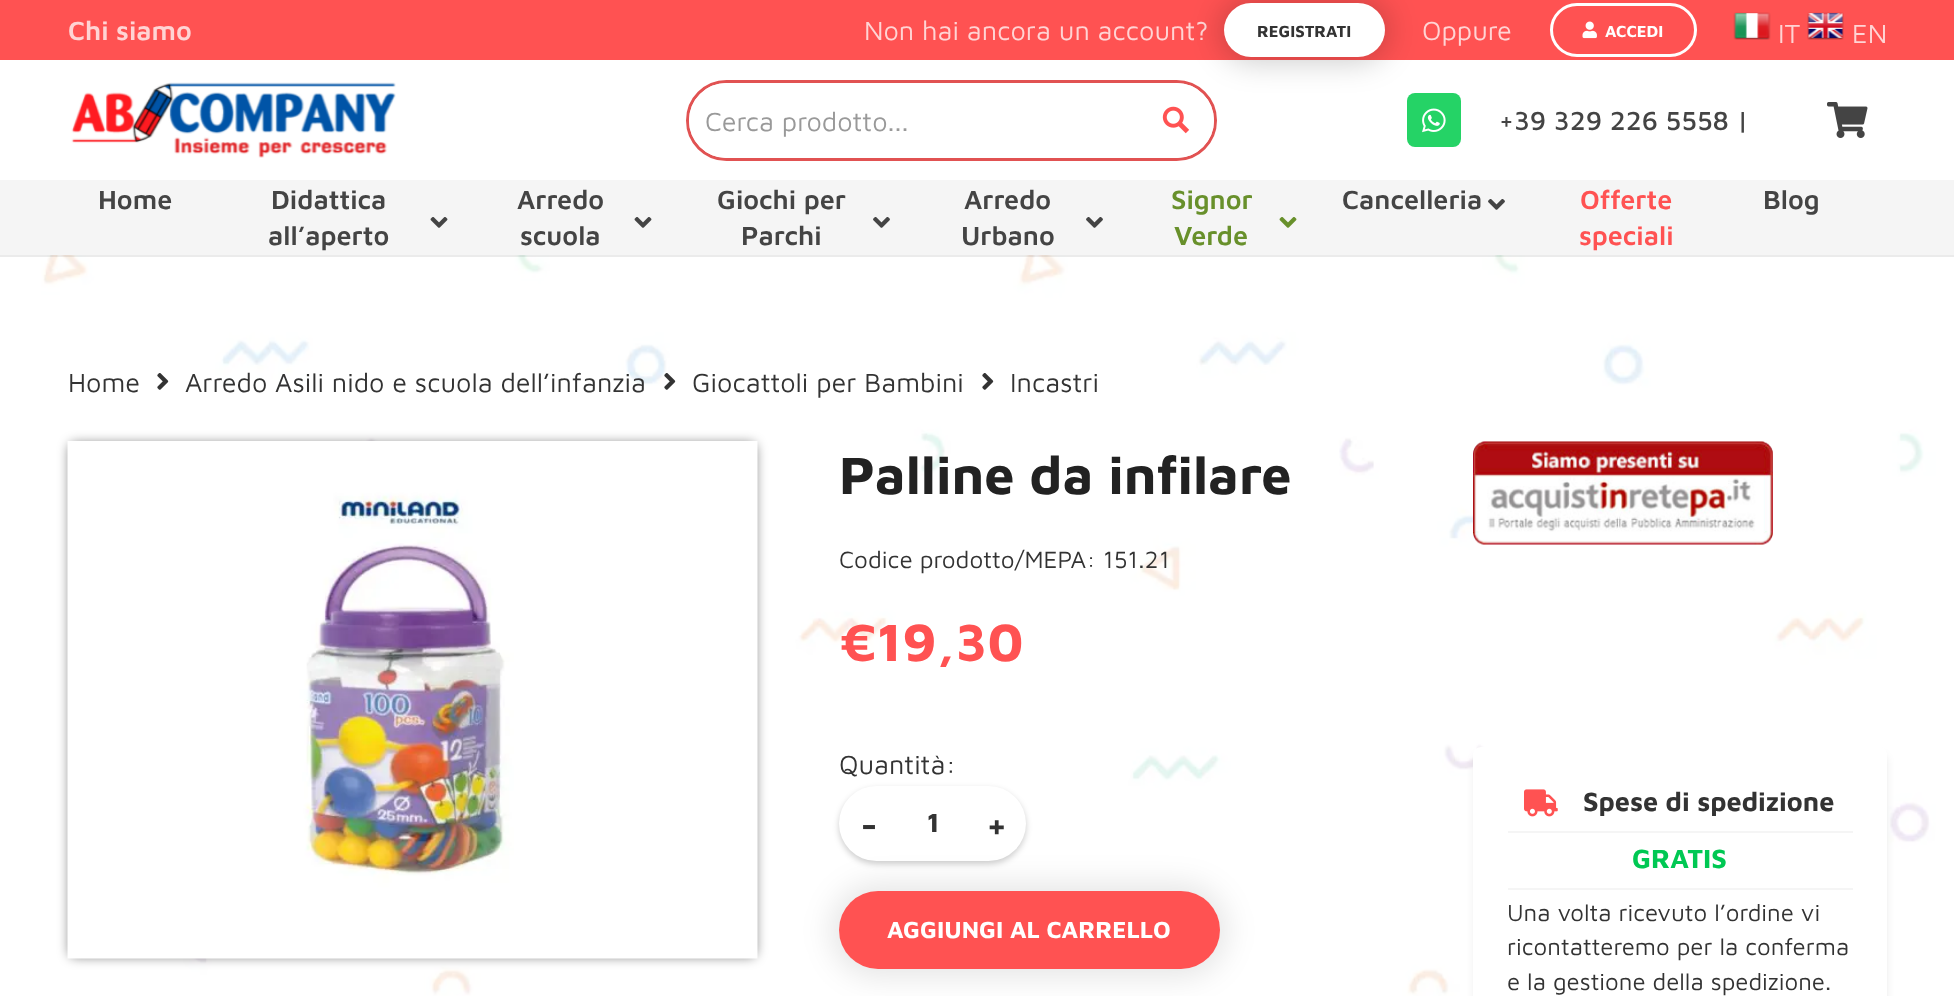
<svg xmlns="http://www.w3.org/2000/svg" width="1954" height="996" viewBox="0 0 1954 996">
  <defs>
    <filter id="blur1" x="-50%" y="-200%" width="200%" height="500%"><feGaussianBlur stdDeviation="15"/></filter>
    <filter id="blur2" x="-50%" y="-200%" width="200%" height="500%"><feGaussianBlur stdDeviation="6"/></filter>
    <filter id="blur3" x="-50%" y="-200%" width="200%" height="500%"><feGaussianBlur stdDeviation="3"/></filter>
    <filter id="blur4" x="-50%" y="-200%" width="200%" height="500%"><feGaussianBlur stdDeviation="4.5"/></filter>
  </defs>
  <rect width="100%" height="100%" fill="#ffffff"/>
  <rect x="0" y="0" width="1954" height="60" fill="#ff5252"/>
  <text x="68" y="40" font-family="Maven Pro" font-size="27" font-weight="600" fill="#ffd4d4">Chi siamo</text>
  <text x="864" y="40" font-family="Maven Pro" font-size="27" fill="#ffd4d4">Non hai ancora un account?</text>
  <rect x="1220" y="-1" width="169" height="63" rx="31.5" fill="#1a1a1a" fill-opacity="0.2" filter="url(#blur1)"/>
  <rect x="1224" y="3" width="161" height="54" rx="27" fill="#ffffff"/>
  <text x="1257" y="37" font-family="Maven Pro" font-size="16.5" font-weight="bold" fill="#333333">REGISTRATI</text>
  <text x="1422" y="40" font-family="Maven Pro" font-size="27" fill="#ffd4d4">Oppure</text>
  <image x="1582" y="21" width="15" height="18" href="img1.png"/>
  <rect x="1551.5" y="4.5" width="144" height="51" rx="25.5" fill="none" stroke="#ffffff" stroke-width="3"/>
  <text x="1605" y="37" font-family="Maven Pro" font-size="16.5" font-weight="bold" fill="#ffffff">ACCEDI</text>
  <image x="1733" y="12" width="38" height="28" href="img2.png"/>
  <text x="1778" y="43" font-family="Maven Pro" font-size="27" fill="#ffd4d4">IT</text>
  <image x="1807" y="12" width="37" height="28" href="img3.png"/>
  <text x="1852" y="43" font-family="Maven Pro" font-size="27" fill="#ffd4d4">EN</text>
  <image x="71" y="82" width="325" height="76" href="img4.png"/>
  <rect x="687.5" y="81.5" width="528" height="78" rx="39" fill="none" stroke="#e15252" stroke-width="3"/>
  <rect x="689" y="83" width="525" height="75" rx="37.5" fill="#ffffff"/>
  <text x="705" y="131" font-family="Maven Pro" font-size="27" fill="#999999">Cerca prodotto...</text>
  <image x="1162" y="106" width="28" height="28" href="img5.png"/>
  <rect x="1407" y="93" width="54" height="54" rx="8" fill="#25d366"/>
  <image x="1422" y="108" width="24" height="25" href="img6.png"/>
  <text x="1499" y="130" font-family="Maven Pro" font-size="27" font-weight="500" fill="#444444">+39 329 226 5558 |</text>
  <image x="1827" y="102" width="41" height="36" href="img7.png"/>
  <image x="41" y="255" width="1895" height="741" href="img11.png"/>
  <path d="M0 255V257H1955V182H1954V255Z" fill="#000000" fill-opacity="0.08"/>
  <rect x="0" y="180" width="1954" height="75" fill="#f5f5f5"/>
  <text x="98" y="209" font-family="Maven Pro" font-size="27" font-weight="600" fill="#444444">Home</text>
  <text x="271" y="209" font-family="Maven Pro" font-size="27" font-weight="600" fill="#444444">Didattica</text>
  <text x="268" y="245" font-family="Maven Pro" font-size="27" font-weight="600" fill="#444444">all’aperto</text>
  <image x="430" y="217" width="18" height="11" href="img8.png"/>
  <text x="517" y="209" font-family="Maven Pro" font-size="27" font-weight="600" fill="#444444">Arredo</text>
  <text x="520" y="245" font-family="Maven Pro" font-size="27" font-weight="600" fill="#444444">scuola</text>
  <image x="634" y="217" width="18" height="11" href="img8.png"/>
  <text x="717" y="209" font-family="Maven Pro" font-size="27" font-weight="600" fill="#444444">Giochi per</text>
  <text x="741" y="245" font-family="Maven Pro" font-size="27" font-weight="600" fill="#444444">Parchi</text>
  <image x="873" y="217" width="17" height="11" href="img9.png"/>
  <text x="964" y="209" font-family="Maven Pro" font-size="27" font-weight="600" fill="#444444">Arredo</text>
  <text x="961" y="245" font-family="Maven Pro" font-size="27" font-weight="600" fill="#444444">Urbano</text>
  <image x="1086" y="217" width="17" height="11" href="img9.png"/>
  <text x="1171" y="209" font-family="Maven Pro" font-size="27" font-weight="600" fill="#68902b">Signor</text>
  <text x="1174" y="245" font-family="Maven Pro" font-size="27" font-weight="600" fill="#68902b">Verde</text>
  <image x="1279" y="217" width="18" height="11" href="img10.png"/>
  <text x="1342" y="209" font-family="Maven Pro" font-size="27" font-weight="600" fill="#444444">Cancelleria</text>
  <image x="1488" y="199" width="17" height="11" href="img9.png"/>
  <text x="1580" y="209" font-family="Maven Pro" font-size="27" font-weight="600" fill="#ff5252">Offerte</text>
  <text x="1579" y="245" font-family="Maven Pro" font-size="27" font-weight="600" fill="#ff5252">speciali</text>
  <text x="1763" y="209" font-family="Maven Pro" font-size="27" font-weight="600" fill="#444444">Blog</text>
  <text x="68" y="392" font-family="Maven Pro" font-size="27" fill="#333333">Home</text>
  <image x="157" y="373" width="12" height="17" href="img12.png"/>
  <text x="185" y="392" font-family="Maven Pro" font-size="27" fill="#333333">Arredo Asili nido e scuola dell’infanzia</text>
  <image x="664" y="373" width="12" height="17" href="img13.png"/>
  <text x="692" y="392" font-family="Maven Pro" font-size="27" fill="#333333">Giocattoli per Bambini</text>
  <image x="982" y="373" width="12" height="17" href="img12.png"/>
  <text x="1010" y="392" font-family="Maven Pro" font-size="27" fill="#333333">Incastri</text>
  <rect x="69" y="443" width="687" height="514" rx="6" fill="#000000" fill-opacity="0.5" filter="url(#blur2)"/>
  <image x="67" y="441" width="691" height="518" href="img14.png"/>
  <text x="839" y="494" font-family="Maven Pro" font-size="54" font-weight="bold" fill="#222222">Palline da infilare</text>
  <text x="839" y="568" font-family="Maven Pro" font-size="24.25" fill="#333333">Codice prodotto/MEPA: 151.21</text>
  <text x="839" y="661" font-family="Maven Pro" font-size="54" font-weight="bold" fill="#ff5252">€19,30</text>
  <text x="839" y="774" font-family="Maven Pro" font-size="27" fill="#333333">Quantità:</text>
  <rect x="839" y="789" width="187" height="75" rx="37.5" fill="#000000" fill-opacity="0.2" filter="url(#blur3)"/>
  <rect x="839" y="786" width="187" height="75" rx="37.5" fill="#ffffff"/>
  <text x="860" y="839" font-family="Maven Pro" font-size="39" font-weight="bold" fill="#333333">-</text>
  <text x="927" y="832" font-family="Maven Pro" font-size="27" font-weight="bold" fill="#333333">1</text>
  <text x="986" y="839" font-family="Maven Pro" font-size="39" font-weight="bold" fill="#333333">+</text>
  <rect x="831" y="884" width="396" height="93" rx="46.5" fill="#1a1a1a" fill-opacity="0.1" filter="url(#blur1)"/>
  <rect x="839" y="891" width="381" height="78" rx="39" fill="#ff5252"/>
  <text x="887" y="938" font-family="Maven Pro" font-size="24" font-weight="bold" fill="#ffffff">AGGIUNGI AL CARRELLO</text>
  <image x="1473" y="441" width="300" height="104" href="img15.png"/>
  <rect x="1475" y="755" width="411" height="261" rx="6" fill="#000000" fill-opacity="0.1" filter="url(#blur4)"/>
  <rect x="1475.5" y="749.5" width="409" height="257" rx="5.5" fill="#ffffff" stroke="#ffffff" stroke-width="5"/>
  <image x="1524" y="789" width="34" height="28" href="img16.png"/>
  <text x="1583" y="811" font-family="Maven Pro" font-size="27" font-weight="bold" fill="#333333">Spese di spedizione</text>
  <rect x="1508" y="831" width="345" height="2" fill="#f5f5f5"/>
  <text x="1632" y="868" font-family="Maven Pro" font-size="27" font-weight="bold" fill="#00c853">GRATIS</text>
  <rect x="1508" y="888" width="345" height="2" fill="#f5f5f5"/>
  <text x="1507" y="921" font-family="Maven Pro" font-size="24" fill="#333333">Una volta ricevuto l’ordine vi</text>
  <text x="1507" y="955" font-family="Maven Pro" font-size="24" fill="#333333">ricontatteremo per la conferma</text>
  <text x="1507" y="990" font-family="Maven Pro" font-size="24" fill="#333333">e la gestione della spedizione.</text>
</svg>
